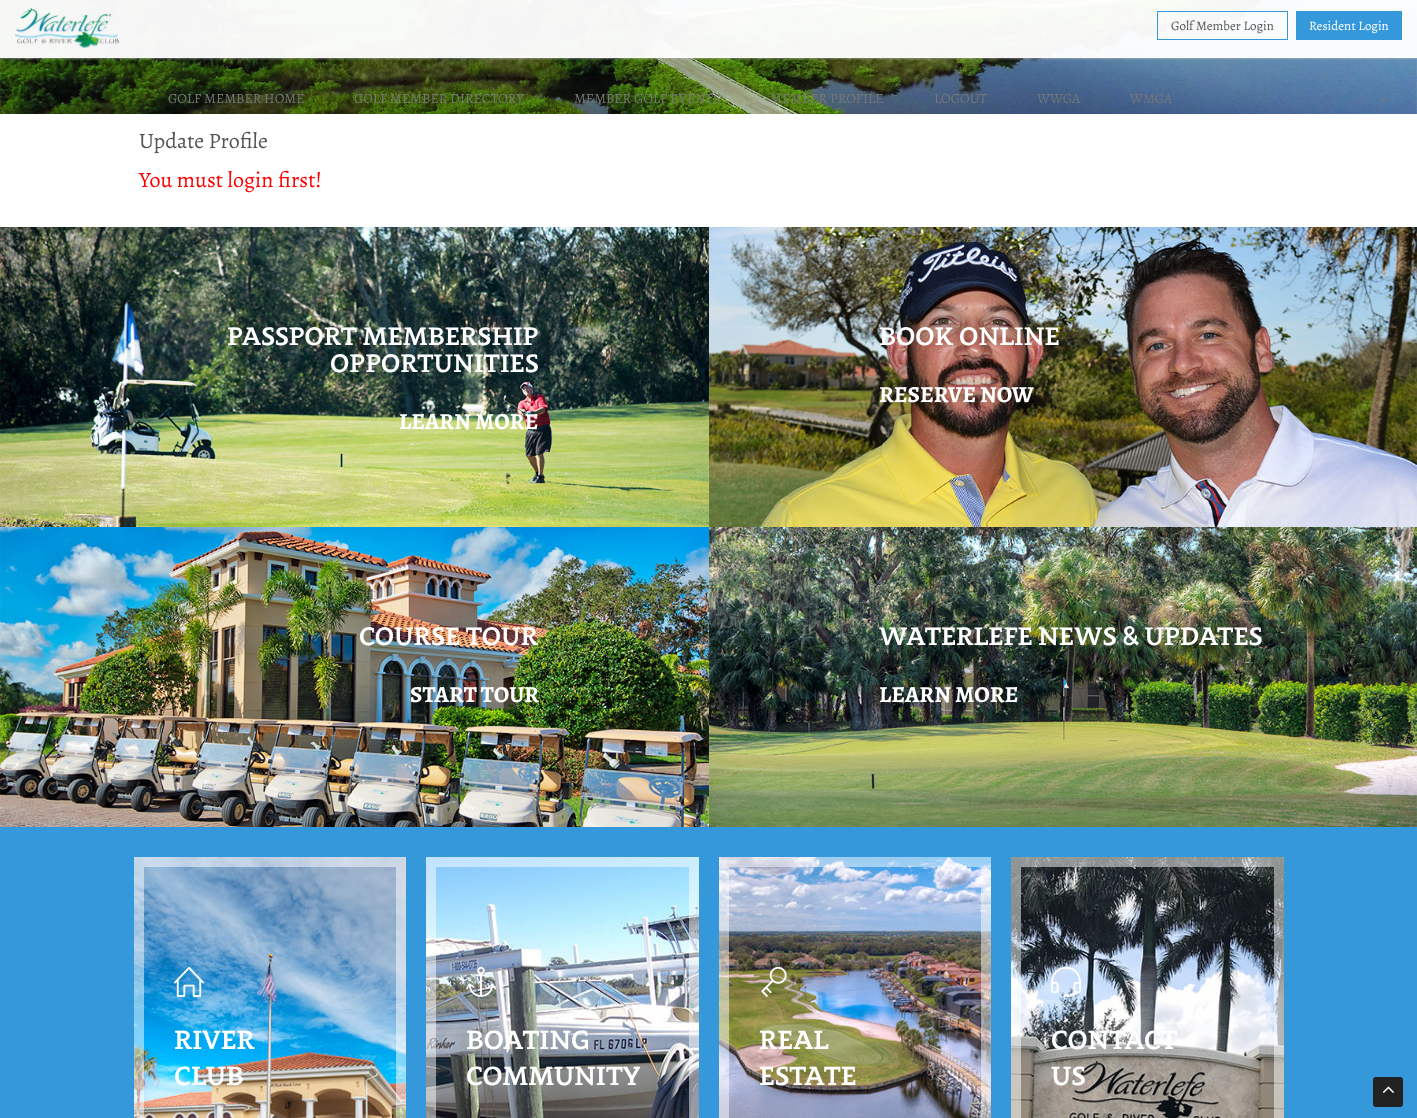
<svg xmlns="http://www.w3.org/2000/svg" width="1417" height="1118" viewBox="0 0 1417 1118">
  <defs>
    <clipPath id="clip1"><rect x="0" y="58" width="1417" height="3"/></clipPath>
    <filter id="blur1" x="-50%" y="-200%" width="200%" height="500%"><feGaussianBlur stdDeviation="1.5"/></filter>
  </defs>
  <rect width="100%" height="100%" fill="#ffffff"/>
  <image x="0" y="0" width="1417" height="114" href="img1.png"/>
  <g clip-path="url(#clip1)">
    <rect x="0" y="-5" width="1417" height="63" fill="#bbbbbb" filter="url(#blur1)"/>
  </g>
  <rect x="0" y="0" width="1417" height="58" fill="#ffffff" fill-opacity="0.96"/>
  <image x="15" y="8" width="104" height="40" href="img2.png"/>
  <rect x="1157.5" y="11.5" width="130" height="28" fill="none" stroke="#3498db"/>
  <text x="1171" y="30" font-family="Alegreya" font-size="13" fill="#555555">Golf Member Login</text>
  <rect x="1296" y="11" width="106" height="29" fill="#3498db"/>
  <text x="1309" y="30" font-family="Alegreya" font-size="13" fill="#ffffff">Resident Login</text>
  <text x="168" y="103" font-family="Alegreya" font-size="14" fill="#777777">GOLF MEMBER HOME</text>
  <text x="354" y="103" font-family="Alegreya" font-size="14" fill="#777777">GOLF MEMBER DIRECTORY</text>
  <text x="574" y="103" font-family="Alegreya" font-size="14" fill="#777777">MEMBER GOLF EVENTS</text>
  <text x="770" y="103" font-family="Alegreya" font-size="14" fill="#777777">MEMBER PROFILE</text>
  <text x="934" y="103" font-family="Alegreya" font-size="14" fill="#777777">LOGOUT</text>
  <text x="1037" y="103" font-family="Alegreya" font-size="14" fill="#777777">WWGA</text>
  <text x="1130" y="103" font-family="Alegreya" font-size="14" fill="#777777">WMGA</text>
  <image x="1380" y="97" width="7" height="4" href="img3.png"/>
  <text x="139" y="148" font-family="Alegreya" font-size="22" fill="#555555">Update Profile</text>
  <text x="139" y="187" font-family="Alegreya" font-size="22" fill="#ff0000">You must login first!</text>
  <image x="0" y="227" width="709" height="300" href="img4.png"/>
  <text x="227" y="345" font-family="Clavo" font-size="25" font-weight="600" fill="#ffffff">PASSPORT MEMBERSHIP</text>
  <text x="330" y="372" font-family="Clavo" font-size="25" font-weight="600" fill="#ffffff">OPPORTUNITIES</text>
  <text x="399" y="429" font-family="Alegreya" font-size="23" font-weight="bold" fill="#ffffff">LEARN MORE</text>
  <image x="709" y="227" width="708" height="300" href="img5.png"/>
  <text x="879" y="345" font-family="Clavo" font-size="25" font-weight="600" fill="#ffffff">BOOK ONLINE</text>
  <text x="879" y="402" font-family="Alegreya" font-size="23" font-weight="bold" fill="#ffffff">RESERVE NOW</text>
  <image x="0" y="527" width="709" height="300" href="img6.png"/>
  <text x="359" y="645" font-family="Clavo" font-size="25" font-weight="600" fill="#ffffff">COURSE TOUR</text>
  <text x="410" y="702" font-family="Alegreya" font-size="23" font-weight="bold" fill="#ffffff">START TOUR</text>
  <image x="709" y="527" width="708" height="300" href="img7.png"/>
  <text x="879" y="645" font-family="Clavo" font-size="25" font-weight="600" fill="#ffffff">WATERLEFE NEWS &amp; UPDATES</text>
  <text x="879" y="702" font-family="Alegreya" font-size="23" font-weight="bold" fill="#ffffff">LEARN MORE</text>
  <rect x="0" y="827" width="1417" height="291" fill="#3498db"/>
  <image x="134" y="857" width="272" height="261" href="img8.png"/>
  <rect x="139" y="862" width="262" height="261" fill="none" stroke="#ffffff" stroke-opacity="0.5" stroke-width="10"/>
  <image x="174" y="967" width="30" height="30" href="img9.png"/>
  <text x="174" y="1049" font-family="Clavo" font-size="26" font-weight="600" fill="#ffffff">RIVER</text>
  <text x="174" y="1085" font-family="Clavo" font-size="26" font-weight="600" fill="#ffffff">CLUB</text>
  <image x="426" y="857" width="273" height="261" href="img10.png"/>
  <rect x="431" y="862" width="263" height="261" fill="none" stroke="#ffffff" stroke-opacity="0.5" stroke-width="10"/>
  <image x="466" y="966" width="30" height="31" href="img11.png"/>
  <text x="466" y="1049" font-family="Clavo" font-size="26" font-weight="600" fill="#ffffff">BOATING</text>
  <text x="466" y="1085" font-family="Clavo" font-size="26" font-weight="600" fill="#ffffff">COMMUNITY</text>
  <image x="719" y="857" width="272" height="261" href="img12.png"/>
  <rect x="724" y="862" width="262" height="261" fill="none" stroke="#ffffff" stroke-opacity="0.5" stroke-width="10"/>
  <image x="761" y="966" width="26" height="31" href="img13.png"/>
  <text x="759" y="1049" font-family="Clavo" font-size="26" font-weight="600" fill="#ffffff">REAL</text>
  <text x="759" y="1085" font-family="Clavo" font-size="26" font-weight="600" fill="#ffffff">ESTATE</text>
  <image x="1011" y="857" width="273" height="261" href="img14.png"/>
  <rect x="1016" y="862" width="263" height="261" fill="none" stroke="#ffffff" stroke-opacity="0.5" stroke-width="10"/>
  <image x="1051" y="966" width="30" height="31" href="img15.png"/>
  <text x="1051" y="1049" font-family="Clavo" font-size="26" font-weight="600" fill="#ffffff">CONTACT</text>
  <text x="1051" y="1085" font-family="Clavo" font-size="26" font-weight="600" fill="#ffffff">US</text>
  <rect x="1373" y="1077" width="30" height="30" rx="3" fill="#222222"/>
  <image x="1382" y="1086" width="12" height="7" href="img16.png"/>
</svg>
